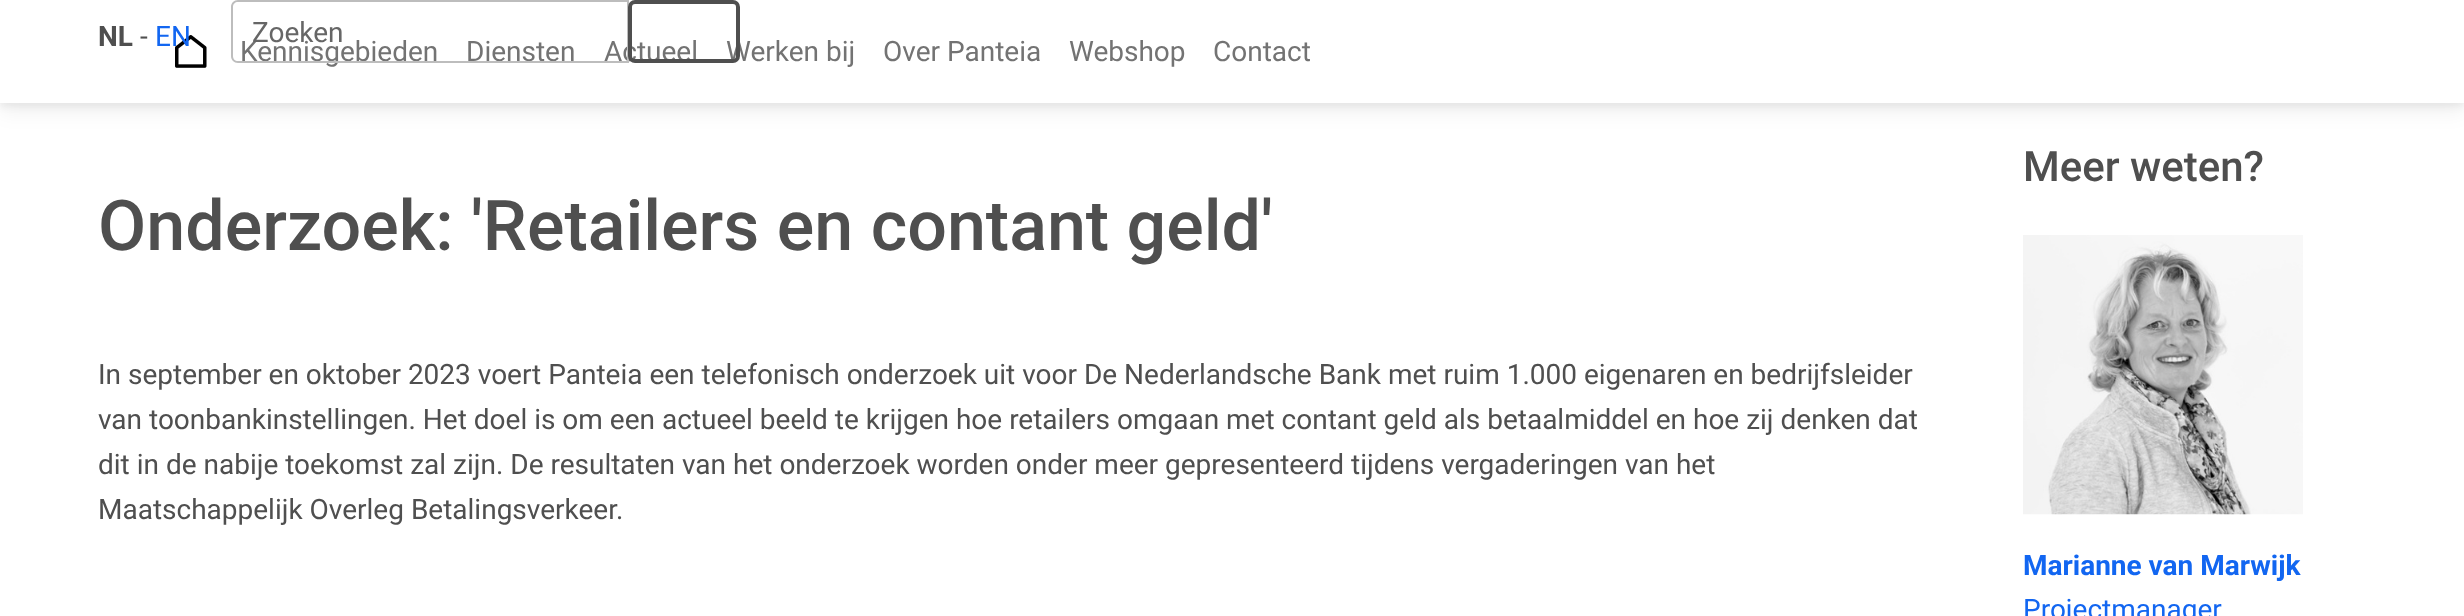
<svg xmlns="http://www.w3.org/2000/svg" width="2464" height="616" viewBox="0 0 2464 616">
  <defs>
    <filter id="blur1" x="-50%" y="-200%" width="200%" height="500%"><feGaussianBlur stdDeviation="3.5"/></filter>
    <filter id="blur2" x="-50%" y="-200%" width="200%" height="500%"><feGaussianBlur stdDeviation="10.5"/></filter>
  </defs>
  <rect width="100%" height="100%" fill="#ffffff"/>
  <rect x="0" y="4" width="2464" height="103" fill="#000000" fill-opacity="0.05" filter="url(#blur1)"/>
  <rect x="0" y="7" width="2464" height="103" fill="#000000" fill-opacity="0.07" filter="url(#blur2)"/>
  <rect x="0" y="0" width="2464" height="103" fill="#ffffff"/>
  <text x="98" y="46" font-family="Roboto" font-size="28" font-weight="bold" fill="#4f4f4f">NL</text>
  <text x="140" y="46" font-family="Roboto" font-size="28" fill="#4f4f4f">-</text>
  <image x="175" y="35" width="32" height="33" href="img1.png"/>
  <text x="155" y="46" font-family="Roboto" font-size="28" fill="#1266f1">EN</text>
  <text x="240" y="61" font-family="Roboto" font-size="28" fill="#737373">Kennisgebieden</text>
  <path d="M238 0H247V63H238C234 63 231 60 231 56V7C231 3 234 0 238 0ZM238 2H247V61H238C235 61 233 59 233 56V7C233 4 235 2 238 2Z" fill="#bdbdbd" fill-rule="evenodd"/>
  <rect x="247" y="0" width="381" height="2" fill="#bdbdbd"/>
  <rect x="247" y="61" width="86" height="2" fill="#bdbdbd"/>
  <text x="604" y="61" font-family="Roboto" font-size="28" fill="#737373">Actueel</text>
  <rect x="627" y="0" width="2" height="63" fill="#bdbdbd"/>
  <text x="466" y="61" font-family="Roboto" font-size="28" fill="#737373">Diensten</text>
  <rect x="333" y="61" width="295" height="2" fill="#bdbdbd"/>
  <text x="252" y="42" font-family="Roboto" font-size="28" fill="#666666">Zoeken</text>
  <text x="726" y="61" font-family="Roboto" font-size="28" fill="#737373">Werken bij</text>
  <rect x="630" y="2" width="108" height="59" rx="5" fill="none" stroke="#4f4f4f" stroke-width="4"/>
  <text x="883" y="61" font-family="Roboto" font-size="28" fill="#737373">Over Panteia</text>
  <text x="1069" y="61" font-family="Roboto" font-size="28" fill="#737373">Webshop</text>
  <text x="1213" y="61" font-family="Roboto" font-size="28" fill="#737373">Contact</text>
  <text x="98" y="250" font-family="Roboto" font-size="70" font-weight="500" fill="#4f4f4f">Onderzoek: 'Retailers en contant geld'</text>
  <text x="98" y="384" font-family="Roboto" font-size="28" fill="#4f4f4f">In september en oktober 2023 voert Panteia een telefonisch onderzoek uit voor De Nederlandsche Bank met ruim 1.000 eigenaren en bedrijfsleider</text>
  <text x="98" y="429" font-family="Roboto" font-size="28" fill="#4f4f4f">van toonbankinstellingen. Het doel is om een actueel beeld te krijgen hoe retailers omgaan met contant geld als betaalmiddel en hoe zij denken dat</text>
  <text x="98" y="474" font-family="Roboto" font-size="28" fill="#4f4f4f">dit in de nabije toekomst zal zijn. De resultaten van het onderzoek worden onder meer gepresenteerd tijdens vergaderingen van het</text>
  <text x="98" y="519" font-family="Roboto" font-size="28" fill="#4f4f4f">Maatschappelijk Overleg Betalingsverkeer.</text>
  <text x="2023" y="181" font-family="Roboto" font-size="42" font-weight="500" fill="#4f4f4f">Meer weten?</text>
  <image x="2023" y="235" width="280" height="280" href="img2.png"/>
  <text x="2023" y="575" font-family="Roboto" font-size="28" font-weight="bold" fill="#1266f1">Marianne van Marwijk</text>
  <text x="2023" y="619" font-family="Roboto" font-size="28" fill="#1266f1">Projectmanager</text>
</svg>
